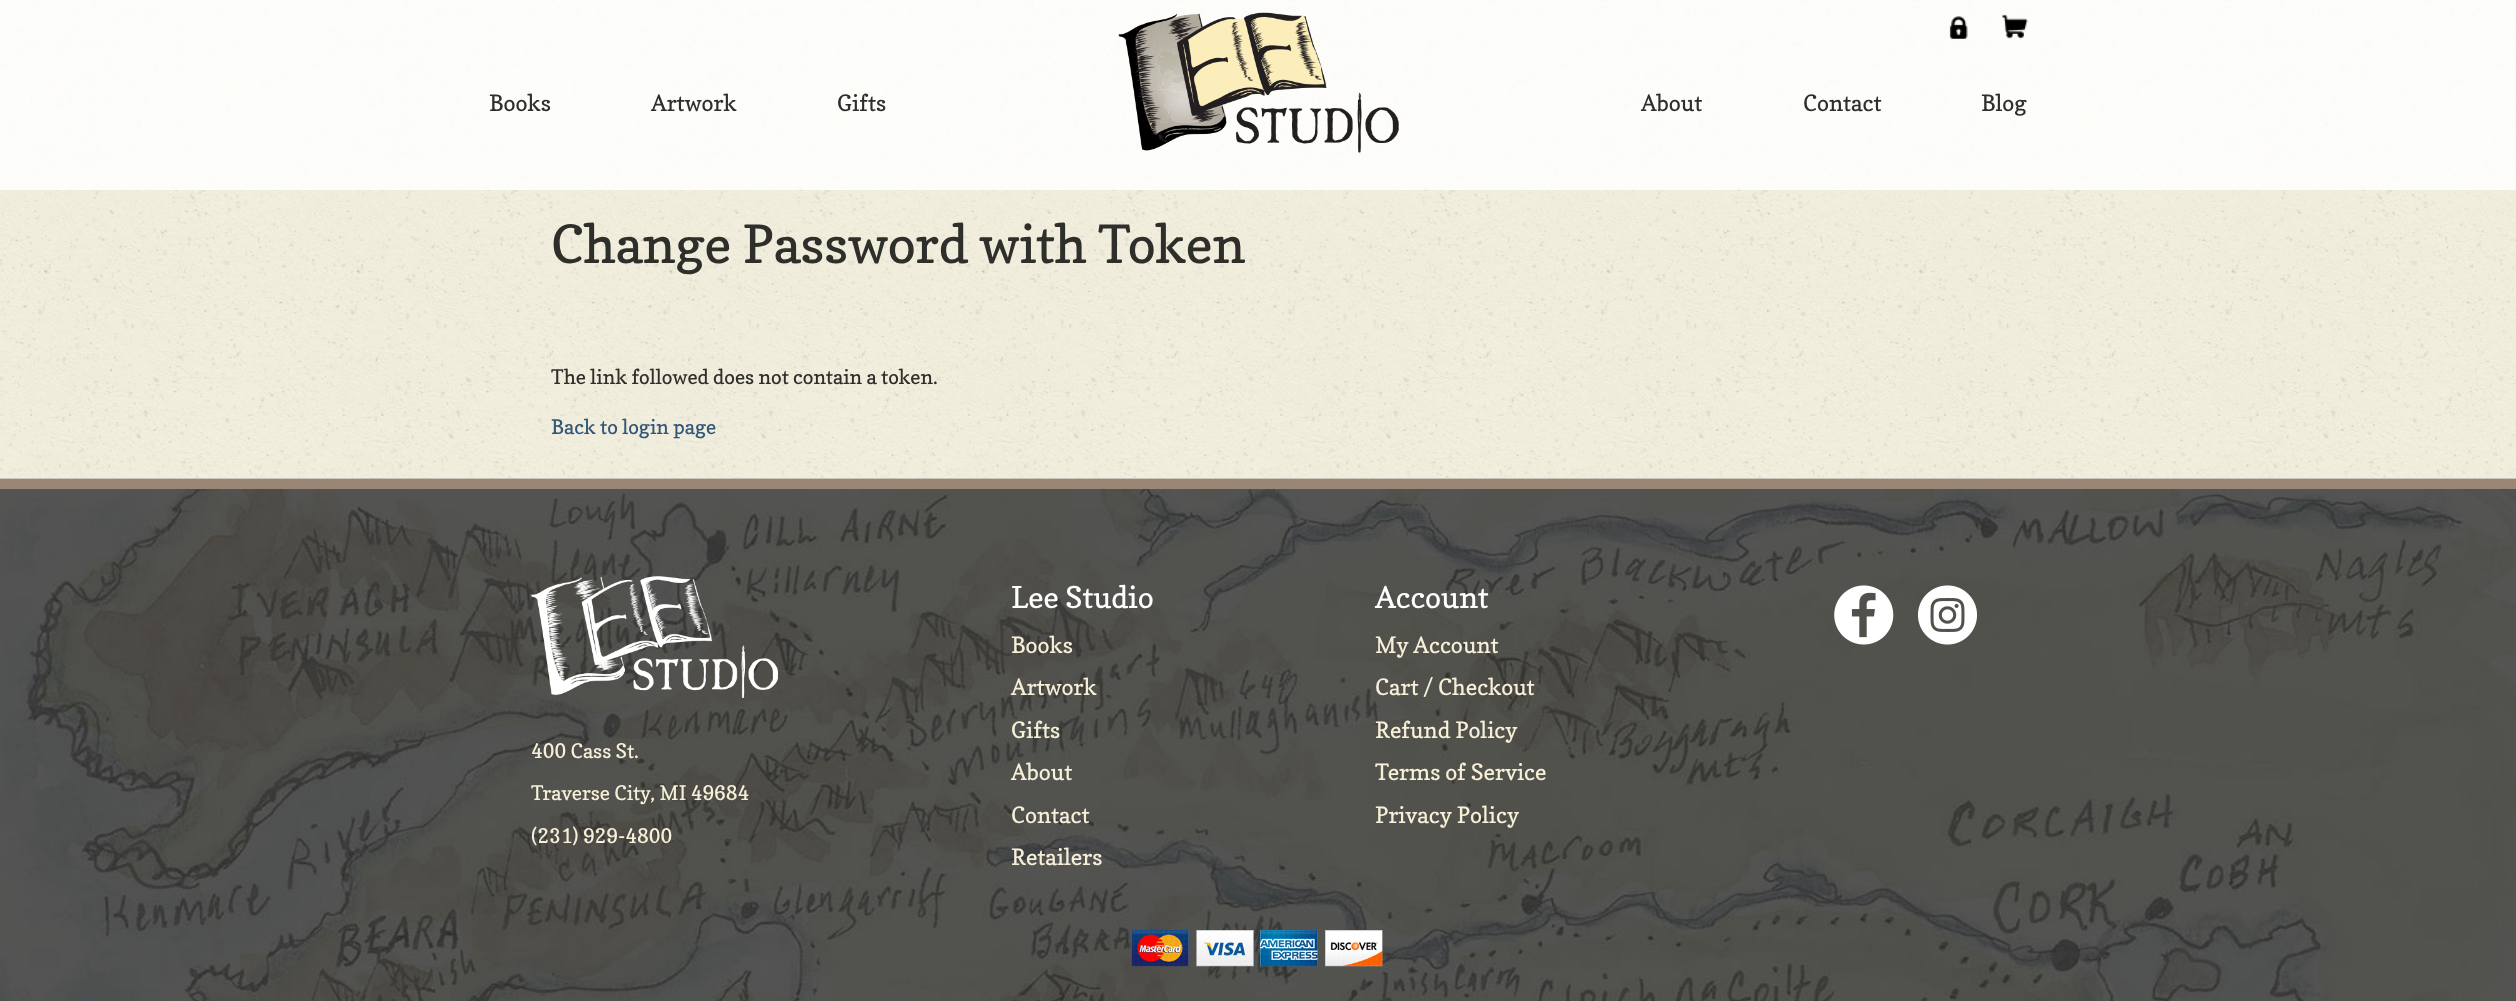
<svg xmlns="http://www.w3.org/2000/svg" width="2516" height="1001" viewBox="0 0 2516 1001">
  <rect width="100%" height="100%" fill="#ffffff"/>
  <image x="0" y="0" width="2516" height="479" href="img4.png"/>
  <rect x="0" y="0" width="2516" height="190" fill="#ffffff" fill-opacity="0.85"/>
  <image x="1118" y="12" width="281" height="141" href="img1.png"/>
  <image x="1949" y="16" width="19" height="23" href="img2.png"/>
  <image x="2002" y="14" width="26" height="25" href="img3.png"/>
  <text x="489" y="111" font-family="Copse" font-size="22.5" fill="#2e2e2b">Books</text>
  <text x="651" y="111" font-family="Copse" font-size="22.5" fill="#2e2e2b">Artwork</text>
  <text x="837" y="111" font-family="Copse" font-size="22.5" fill="#2e2e2b">Gifts</text>
  <text x="1641" y="111" font-family="Copse" font-size="22.5" fill="#2e2e2b">About</text>
  <text x="1803" y="111" font-family="Copse" font-size="22.5" fill="#2e2e2b">Contact</text>
  <text x="1981" y="111" font-family="Copse" font-size="22.5" fill="#2e2e2b">Blog</text>
  <text x="551" y="263" font-family="Copse" font-size="52.5" fill="#2e2e2b">Change Password with Token</text>
  <text x="551" y="384" font-family="Copse" font-size="20" fill="#2e2e2b">The link followed does not contain a token.</text>
  <text x="551" y="434" font-family="Copse" font-size="20" fill="#315678">Back to login page</text>
  <image x="0" y="478" width="2516" height="523" href="img5.png"/>
  <rect x="0" y="479" width="2516" height="10" fill="#998675"/>
  <text x="1011" y="608" font-family="Copse" font-size="30" fill="#ffffff">Lee Studio</text>
  <text x="1011" y="653" font-family="Copse" font-size="22.5" fill="#f7efd8">Books</text>
  <text x="1011" y="695" font-family="Copse" font-size="22.5" fill="#f7efd8">Artwork</text>
  <text x="1011" y="738" font-family="Copse" font-size="22.5" fill="#f7efd8">Gifts</text>
  <text x="1011" y="780" font-family="Copse" font-size="22.5" fill="#f7efd8">About</text>
  <text x="1011" y="823" font-family="Copse" font-size="22.5" fill="#f7efd8">Contact</text>
  <text x="1011" y="865" font-family="Copse" font-size="22.5" fill="#f7efd8">Retailers</text>
  <text x="1375" y="608" font-family="Copse" font-size="30" fill="#ffffff">Account</text>
  <text x="1375" y="653" font-family="Copse" font-size="22.5" fill="#f7efd8">My Account</text>
  <text x="1375" y="695" font-family="Copse" font-size="22.5" fill="#f7efd8">Cart / Checkout</text>
  <text x="1375" y="738" font-family="Copse" font-size="22.5" fill="#f7efd8">Refund Policy</text>
  <text x="1375" y="780" font-family="Copse" font-size="22.5" fill="#f7efd8">Terms of Service</text>
  <text x="1375" y="823" font-family="Copse" font-size="22.5" fill="#f7efd8">Privacy Policy</text>
  <image x="1834" y="585" width="60" height="60" href="img6.png"/>
  <image x="1917" y="585" width="61" height="60" href="img7.png"/>
  <image x="531" y="576" width="247" height="122" href="img8.png"/>
  <text x="531" y="758" font-family="Copse" font-size="20" fill="#f7efd8">400 Cass St.</text>
  <text x="531" y="800" font-family="Copse" font-size="20" fill="#f7efd8">Traverse City, MI 49684</text>
  <text x="531" y="843" font-family="Copse" font-size="20" fill="#f7efd8">(231) 929-4800</text>
  <image x="1131" y="930" width="58" height="37" href="img9.png"/>
  <image x="1196" y="930" width="58" height="37" href="img10.png"/>
  <image x="1260" y="930" width="58" height="37" href="img11.png"/>
  <image x="1325" y="930" width="58" height="37" href="img12.png"/>
</svg>
